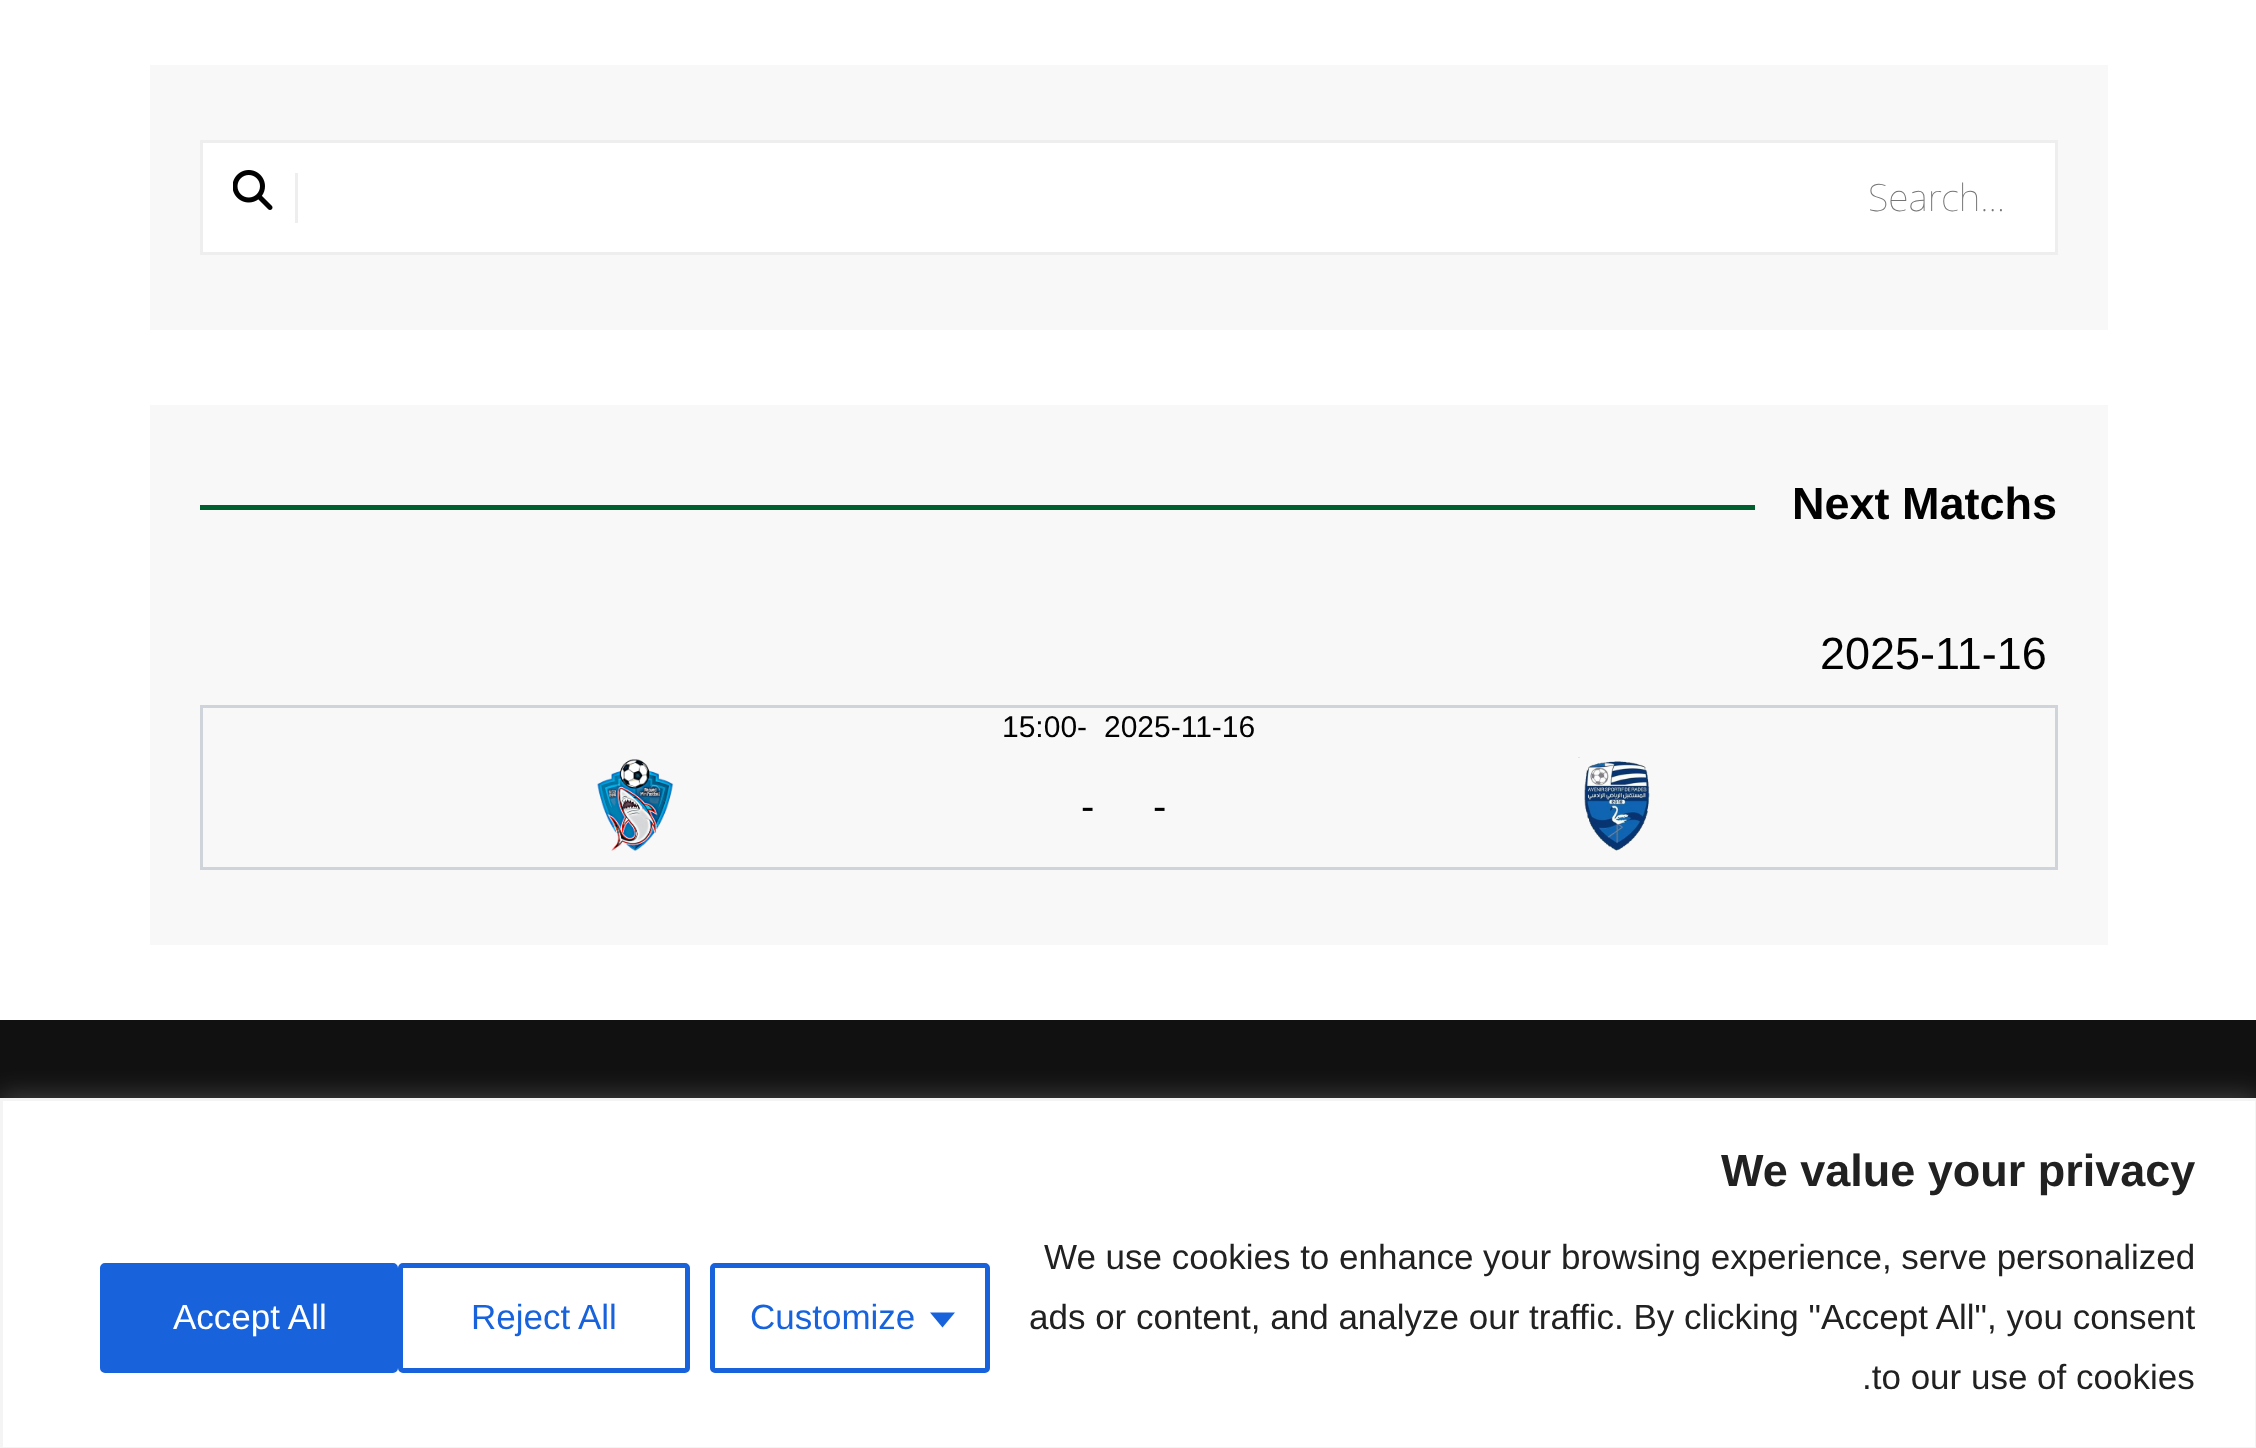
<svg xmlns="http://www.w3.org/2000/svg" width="2256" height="1448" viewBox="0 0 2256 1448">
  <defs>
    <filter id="blur1" x="-50%" y="-200%" width="200%" height="500%"><feGaussianBlur stdDeviation="12.5"/></filter>
  </defs>
  <rect width="100%" height="100%" fill="#ffffff"/>
  <rect x="150" y="65" width="1958" height="265" fill="#f8f8f8"/>
  <rect x="201.5" y="141.5" width="1855" height="112" fill="#ffffff" stroke="#eeeeee" stroke-width="3"/>
  <rect x="295" y="173" width="3" height="50" fill="#eeeeee"/>
  <image x="233" y="170" width="40" height="40" href="img1.png"/>
  <text x="1868" y="211" font-family="Noto Sans" font-size="37.5" font-weight="100" fill="#757575">Search...</text>
  <rect x="150" y="405" width="1958" height="540" fill="#f8f8f8"/>
  <rect x="200" y="505" width="1555" height="5" fill="#005f2f"/>
  <text x="1792" y="519" font-family="Liberation Sans" font-size="45" font-weight="bold" fill="#010101">Next Matchs</text>
  <text x="1820" y="669" font-family="Liberation Sans" font-size="45" fill="#010101">2025-11-16</text>
  <rect x="201.5" y="706.5" width="1855" height="162" fill="none" stroke="#ced4da" stroke-width="3"/>
  <text x="1002" y="737" font-family="Liberation Sans" font-size="30" fill="#010101">15:00</text>
  <text x="1077" y="737" font-family="Liberation Sans" font-size="30" fill="#010101">-</text>
  <text x="1104" y="737" font-family="Liberation Sans" font-size="30" fill="#010101">2025-11-16</text>
  <image x="597" y="759" width="77" height="92" href="img2.png"/>
  <text x="1081" y="820" font-family="Liberation Sans" font-size="40" fill="#010101">-</text>
  <text x="1153" y="820" font-family="Liberation Sans" font-size="40" fill="#010101">-</text>
  <image x="1578" y="757" width="72" height="94" href="img3.png"/>
  <rect x="0" y="1020" width="2256" height="78" fill="#111111"/>
  <rect x="0" y="1095" width="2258" height="353" fill="#acabab" fill-opacity="0.3" filter="url(#blur1)"/>
  <rect x="1.5" y="1099.5" width="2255" height="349" fill="#ffffff" stroke="#f4f4f4" stroke-width="3"/>
  <text x="1721" y="1186" font-family="Liberation Sans" font-size="45" font-weight="bold" fill="#212121">We value your privacy</text>
  <rect x="102.5" y="1265.5" width="293" height="105" rx="2.5" fill="#1863dc" stroke="#1863dc" stroke-width="5"/>
  <text x="173" y="1329" font-family="Liberation Sans" font-size="35" fill="#ffffff">Accept All</text>
  <rect x="400.5" y="1265.5" width="287" height="105" rx="2.5" fill="none" stroke="#1863dc" stroke-width="5"/>
  <text x="471" y="1329" font-family="Liberation Sans" font-size="35" fill="#1863dc">Reject All</text>
  <rect x="712.5" y="1265.5" width="275" height="105" rx="2.5" fill="none" stroke="#1863dc" stroke-width="5"/>
  <text x="750" y="1329" font-family="Liberation Sans" font-size="35" fill="#1863dc">Customize</text>
  <path d="M930 1312.5H955L942.5 1327.5Z" fill="#1863dc"/>
  <text x="1044" y="1269" font-family="Liberation Sans" font-size="35" fill="#212121">We use cookies to enhance your browsing experience, serve personalized</text>
  <text x="1029" y="1329" font-family="Liberation Sans" font-size="35" fill="#212121">ads or content, and analyze our traffic. By clicking "Accept All", you consent</text>
  <text x="1862" y="1389" font-family="Liberation Sans" font-size="35" fill="#212121">.to our use of cookies</text>
</svg>
